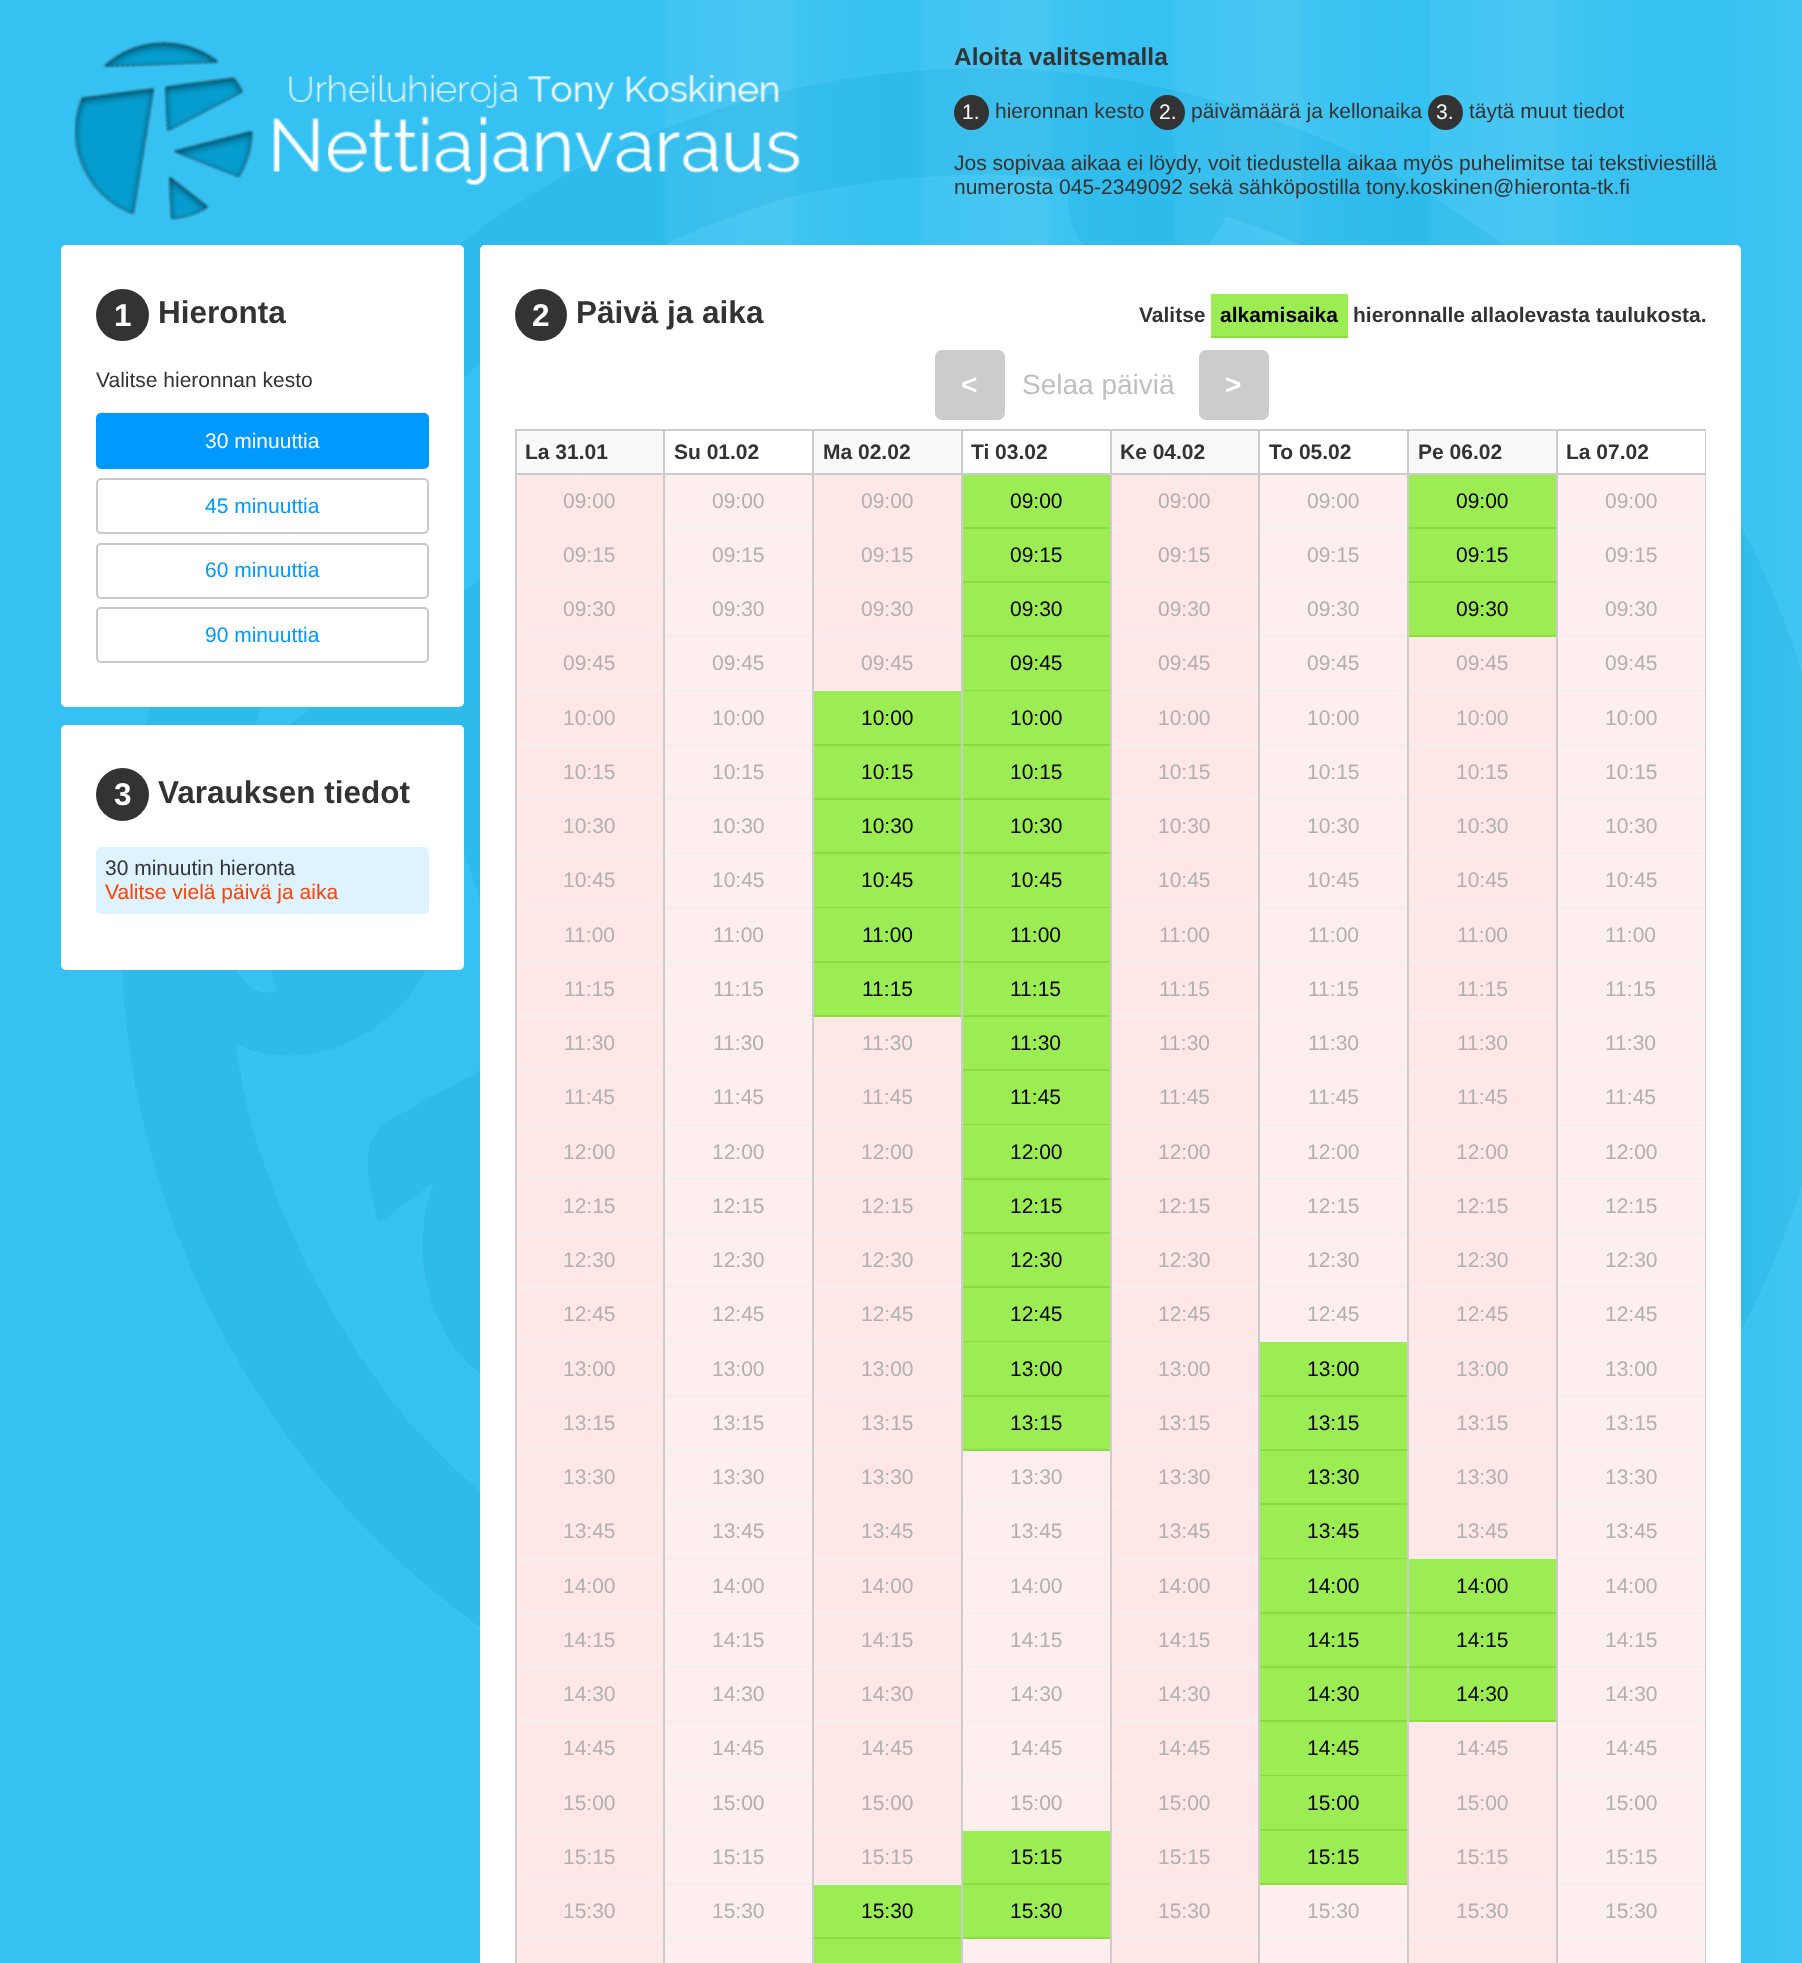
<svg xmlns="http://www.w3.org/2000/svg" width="1802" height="1963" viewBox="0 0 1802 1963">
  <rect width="100%" height="100%" fill="#ffffff"/>
  <image x="0" y="0" width="1802" height="1963" href="img1.png"/>
  <image x="74" y="40" width="726" height="181" href="img2.png"/>
  <text x="954" y="65" font-family="Liberation Sans" font-size="24.5" font-weight="bold" fill="#333333">Aloita valitsemalla</text>
  <circle cx="971.5" cy="112.5" r="17.5" fill="#333333"/>
  <text x="962" y="119" font-family="Liberation Sans" font-size="21" fill="#ffffff">1.</text>
  <text x="995" y="118" font-family="Liberation Sans" font-size="21" fill="#333333">hieronnan kesto</text>
  <circle cx="1167.5" cy="112.5" r="17.5" fill="#333333"/>
  <text x="1159" y="119" font-family="Liberation Sans" font-size="21" fill="#ffffff">2.</text>
  <text x="1191" y="118" font-family="Liberation Sans" font-size="21" fill="#333333">päivämäärä ja kellonaika</text>
  <circle cx="1445.5" cy="112.5" r="17.5" fill="#333333"/>
  <text x="1436" y="119" font-family="Liberation Sans" font-size="21" fill="#ffffff">3.</text>
  <text x="1469" y="118" font-family="Liberation Sans" font-size="21" fill="#333333">täytä muut tiedot</text>
  <text x="954" y="170" font-family="Liberation Sans" font-size="21" fill="#333333">Jos sopivaa aikaa ei löydy, voit tiedustella aikaa myös puhelimitse tai tekstiviestillä</text>
  <text x="954" y="194" font-family="Liberation Sans" font-size="21" fill="#333333">numerosta 045-2349092 sekä sähköpostilla tony.koskinen@hieronta-tk.fi</text>
  <rect x="61" y="245" width="403" height="462" rx="5" fill="#ffffff"/>
  <rect x="96" y="289" width="53" height="52" rx="26" fill="#333333"/>
  <text x="114" y="326" font-family="Liberation Sans" font-size="31.5" font-weight="bold" fill="#ffffff">1</text>
  <text x="158" y="323" font-family="Liberation Sans" font-size="31.5" font-weight="bold" fill="#333333">Hieronta</text>
  <text x="96" y="387" font-family="Liberation Sans" font-size="21" fill="#333333">Valitse hieronnan kesto</text>
  <rect x="97" y="414" width="331" height="54" rx="4" fill="#0099ff" stroke="#0099ff" stroke-width="2"/>
  <text x="205" y="448" font-family="Liberation Sans" font-size="21" fill="#ffffff">30 minuuttia</text>
  <rect x="97" y="479" width="331" height="54" rx="4" fill="none" stroke="#c9c9c9" stroke-width="2"/>
  <text x="205" y="513" font-family="Liberation Sans" font-size="21" fill="#0099ff">45 minuuttia</text>
  <rect x="97" y="544" width="331" height="54" rx="4" fill="none" stroke="#c9c9c9" stroke-width="2"/>
  <text x="205" y="577" font-family="Liberation Sans" font-size="21" fill="#0099ff">60 minuuttia</text>
  <rect x="97" y="608" width="331" height="54" rx="4" fill="none" stroke="#c9c9c9" stroke-width="2"/>
  <text x="205" y="642" font-family="Liberation Sans" font-size="21" fill="#0099ff">90 minuuttia</text>
  <rect x="480" y="245" width="1261" height="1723" rx="5" fill="#ffffff"/>
  <circle cx="541" cy="315" r="26" fill="#333333"/>
  <text x="532" y="326" font-family="Liberation Sans" font-size="31.5" font-weight="bold" fill="#ffffff">2</text>
  <text x="576" y="323" font-family="Liberation Sans" font-size="31.5" font-weight="bold" fill="#333333">Päivä ja aika</text>
  <text x="1139" y="322" font-family="Liberation Sans" font-size="21" font-weight="bold" fill="#333333">Valitse</text>
  <rect x="1211" y="294" width="137" height="42" fill="#9cec54"/>
  <text x="1220" y="322" font-family="Liberation Sans" font-size="21" font-weight="bold" fill="#000000">alkamisaika</text>
  <rect x="1211" y="336" width="137" height="2" fill="#8add3e"/>
  <text x="1353" y="322" font-family="Liberation Sans" font-size="21" font-weight="bold" fill="#333333">hieronnalle allaolevasta taulukosta.</text>
  <rect x="935" y="350" width="70" height="70" rx="7" fill="#cccccc"/>
  <text x="961" y="394" font-family="Liberation Sans" font-size="28" font-weight="bold" fill="#ffffff">&lt;</text>
  <text x="1022" y="394" font-family="Liberation Sans" font-size="28" fill="#c0c0c0">Selaa päiviä</text>
  <rect x="1199" y="350" width="70" height="70" rx="7" fill="#cccccc"/>
  <text x="1225" y="394" font-family="Liberation Sans" font-size="28" font-weight="bold" fill="#ffffff">&gt;</text>
  <rect x="515" y="429" width="1191" height="2" fill="#cccccc"/>
  <rect x="517" y="475" width="146" height="1488" fill="#ffe7e7"/>
  <rect x="516" y="527" width="147" height="2" fill="#f0f0f0"/>
  <rect x="516" y="581" width="147" height="2" fill="#f0f0f0"/>
  <rect x="516" y="635" width="147" height="2" fill="#f0f0f0"/>
  <rect x="516" y="690" width="147" height="2" fill="#f0f0f0"/>
  <rect x="516" y="744" width="147" height="2" fill="#f0f0f0"/>
  <rect x="516" y="798" width="147" height="2" fill="#f0f0f0"/>
  <rect x="516" y="852" width="147" height="2" fill="#f0f0f0"/>
  <rect x="516" y="907" width="147" height="2" fill="#f0f0f0"/>
  <rect x="516" y="961" width="147" height="2" fill="#f0f0f0"/>
  <rect x="516" y="1015" width="147" height="2" fill="#f0f0f0"/>
  <rect x="516" y="1069" width="147" height="2" fill="#f0f0f0"/>
  <rect x="516" y="1124" width="147" height="2" fill="#f0f0f0"/>
  <rect x="516" y="1178" width="147" height="2" fill="#f0f0f0"/>
  <rect x="516" y="1232" width="147" height="2" fill="#f0f0f0"/>
  <rect x="516" y="1286" width="147" height="2" fill="#f0f0f0"/>
  <rect x="516" y="1341" width="147" height="2" fill="#f0f0f0"/>
  <rect x="516" y="1395" width="147" height="2" fill="#f0f0f0"/>
  <rect x="516" y="1449" width="147" height="2" fill="#f0f0f0"/>
  <rect x="516" y="1503" width="147" height="2" fill="#f0f0f0"/>
  <rect x="516" y="1558" width="147" height="2" fill="#f0f0f0"/>
  <rect x="516" y="1612" width="147" height="2" fill="#f0f0f0"/>
  <rect x="516" y="1666" width="147" height="2" fill="#f0f0f0"/>
  <rect x="516" y="1720" width="147" height="2" fill="#f0f0f0"/>
  <rect x="516" y="1775" width="147" height="2" fill="#f0f0f0"/>
  <rect x="516" y="1829" width="147" height="2" fill="#f0f0f0"/>
  <rect x="516" y="1883" width="147" height="2" fill="#f0f0f0"/>
  <rect x="516" y="1937" width="147" height="2" fill="#f0f0f0"/>
  <rect x="515" y="429" width="2" height="1534" fill="#cccccc"/>
  <rect x="517" y="431" width="146" height="42" fill="#f9f9f9"/>
  <text x="525" y="459" font-family="Liberation Sans" font-size="21" font-weight="bold" fill="#333333">La 31.01</text>
  <rect x="1705" y="473" width="1" height="1490" fill="#cccccc"/>
  <rect x="1556" y="473" width="150" height="2" fill="#cccccc"/>
  <rect x="1556" y="473" width="2" height="1490" fill="#cccccc"/>
  <rect x="1407" y="473" width="151" height="2" fill="#cccccc"/>
  <rect x="1407" y="473" width="2" height="1490" fill="#cccccc"/>
  <rect x="1258" y="473" width="151" height="2" fill="#cccccc"/>
  <rect x="1258" y="473" width="2" height="1490" fill="#cccccc"/>
  <rect x="1110" y="473" width="150" height="2" fill="#cccccc"/>
  <rect x="1112" y="475" width="146" height="1488" fill="#ffe7e7"/>
  <rect x="1111" y="527" width="147" height="2" fill="#f0f0f0"/>
  <rect x="1111" y="581" width="147" height="2" fill="#f0f0f0"/>
  <rect x="1111" y="635" width="147" height="2" fill="#f0f0f0"/>
  <rect x="1111" y="690" width="147" height="2" fill="#f0f0f0"/>
  <rect x="1111" y="744" width="147" height="2" fill="#f0f0f0"/>
  <rect x="1111" y="798" width="147" height="2" fill="#f0f0f0"/>
  <rect x="1111" y="852" width="147" height="2" fill="#f0f0f0"/>
  <rect x="1111" y="907" width="147" height="2" fill="#f0f0f0"/>
  <rect x="1111" y="961" width="147" height="2" fill="#f0f0f0"/>
  <rect x="1111" y="1015" width="147" height="2" fill="#f0f0f0"/>
  <rect x="1111" y="1069" width="147" height="2" fill="#f0f0f0"/>
  <rect x="1111" y="1124" width="147" height="2" fill="#f0f0f0"/>
  <rect x="1111" y="1178" width="147" height="2" fill="#f0f0f0"/>
  <rect x="1111" y="1232" width="147" height="2" fill="#f0f0f0"/>
  <rect x="1111" y="1286" width="147" height="2" fill="#f0f0f0"/>
  <rect x="1111" y="1341" width="147" height="2" fill="#f0f0f0"/>
  <rect x="1111" y="1395" width="147" height="2" fill="#f0f0f0"/>
  <rect x="1111" y="1449" width="147" height="2" fill="#f0f0f0"/>
  <rect x="1111" y="1503" width="147" height="2" fill="#f0f0f0"/>
  <rect x="1111" y="1558" width="147" height="2" fill="#f0f0f0"/>
  <rect x="1111" y="1612" width="147" height="2" fill="#f0f0f0"/>
  <rect x="1111" y="1666" width="147" height="2" fill="#f0f0f0"/>
  <rect x="1111" y="1720" width="147" height="2" fill="#f0f0f0"/>
  <rect x="1111" y="1775" width="147" height="2" fill="#f0f0f0"/>
  <rect x="1111" y="1829" width="147" height="2" fill="#f0f0f0"/>
  <rect x="1111" y="1883" width="147" height="2" fill="#f0f0f0"/>
  <rect x="1111" y="1937" width="147" height="2" fill="#f0f0f0"/>
  <rect x="1110" y="473" width="2" height="1490" fill="#cccccc"/>
  <rect x="961" y="473" width="150" height="2" fill="#cccccc"/>
  <rect x="961" y="473" width="2" height="1490" fill="#cccccc"/>
  <rect x="812" y="473" width="151" height="2" fill="#cccccc"/>
  <rect x="812" y="473" width="2" height="1490" fill="#cccccc"/>
  <rect x="663" y="473" width="151" height="2" fill="#cccccc"/>
  <rect x="663" y="473" width="2" height="1490" fill="#cccccc"/>
  <rect x="515" y="473" width="150" height="2" fill="#cccccc"/>
  <rect x="663" y="429" width="2" height="45" fill="#cccccc"/>
  <text x="674" y="459" font-family="Liberation Sans" font-size="21" font-weight="bold" fill="#333333">Su 01.02</text>
  <rect x="814" y="431" width="147" height="42" fill="#f9f9f9"/>
  <rect x="812" y="429" width="2" height="45" fill="#cccccc"/>
  <text x="823" y="459" font-family="Liberation Sans" font-size="21" font-weight="bold" fill="#333333">Ma 02.02</text>
  <rect x="961" y="429" width="2" height="45" fill="#cccccc"/>
  <text x="971" y="459" font-family="Liberation Sans" font-size="21" font-weight="bold" fill="#333333">Ti 03.02</text>
  <rect x="1112" y="431" width="146" height="42" fill="#f9f9f9"/>
  <rect x="1110" y="429" width="2" height="45" fill="#cccccc"/>
  <text x="1120" y="459" font-family="Liberation Sans" font-size="21" font-weight="bold" fill="#333333">Ke 04.02</text>
  <rect x="1258" y="429" width="2" height="45" fill="#cccccc"/>
  <text x="1269" y="459" font-family="Liberation Sans" font-size="21" font-weight="bold" fill="#333333">To 05.02</text>
  <rect x="1409" y="431" width="147" height="42" fill="#f9f9f9"/>
  <rect x="1407" y="429" width="2" height="45" fill="#cccccc"/>
  <text x="1418" y="459" font-family="Liberation Sans" font-size="21" font-weight="bold" fill="#333333">Pe 06.02</text>
  <rect x="1556" y="429" width="2" height="45" fill="#cccccc"/>
  <text x="1566" y="459" font-family="Liberation Sans" font-size="21" font-weight="bold" fill="#333333">La 07.02</text>
  <rect x="1705" y="429" width="1" height="45" fill="#cccccc"/>
  <text x="563" y="508" font-family="Liberation Sans" font-size="21" fill="#b0b0b0">09:00</text>
  <text x="563" y="562" font-family="Liberation Sans" font-size="21" fill="#b0b0b0">09:15</text>
  <text x="563" y="616" font-family="Liberation Sans" font-size="21" fill="#b0b0b0">09:30</text>
  <text x="563" y="670" font-family="Liberation Sans" font-size="21" fill="#b0b0b0">09:45</text>
  <text x="563" y="725" font-family="Liberation Sans" font-size="21" fill="#b0b0b0">10:00</text>
  <text x="563" y="779" font-family="Liberation Sans" font-size="21" fill="#b0b0b0">10:15</text>
  <text x="563" y="833" font-family="Liberation Sans" font-size="21" fill="#b0b0b0">10:30</text>
  <text x="563" y="887" font-family="Liberation Sans" font-size="21" fill="#b0b0b0">10:45</text>
  <text x="564" y="942" font-family="Liberation Sans" font-size="21" fill="#b0b0b0">11:00</text>
  <text x="564" y="996" font-family="Liberation Sans" font-size="21" fill="#b0b0b0">11:15</text>
  <text x="564" y="1050" font-family="Liberation Sans" font-size="21" fill="#b0b0b0">11:30</text>
  <text x="564" y="1104" font-family="Liberation Sans" font-size="21" fill="#b0b0b0">11:45</text>
  <text x="563" y="1159" font-family="Liberation Sans" font-size="21" fill="#b0b0b0">12:00</text>
  <text x="563" y="1213" font-family="Liberation Sans" font-size="21" fill="#b0b0b0">12:15</text>
  <text x="563" y="1267" font-family="Liberation Sans" font-size="21" fill="#b0b0b0">12:30</text>
  <text x="563" y="1321" font-family="Liberation Sans" font-size="21" fill="#b0b0b0">12:45</text>
  <text x="563" y="1376" font-family="Liberation Sans" font-size="21" fill="#b0b0b0">13:00</text>
  <text x="563" y="1430" font-family="Liberation Sans" font-size="21" fill="#b0b0b0">13:15</text>
  <text x="563" y="1484" font-family="Liberation Sans" font-size="21" fill="#b0b0b0">13:30</text>
  <text x="563" y="1538" font-family="Liberation Sans" font-size="21" fill="#b0b0b0">13:45</text>
  <text x="563" y="1593" font-family="Liberation Sans" font-size="21" fill="#b0b0b0">14:00</text>
  <text x="563" y="1647" font-family="Liberation Sans" font-size="21" fill="#b0b0b0">14:15</text>
  <text x="563" y="1701" font-family="Liberation Sans" font-size="21" fill="#b0b0b0">14:30</text>
  <text x="563" y="1755" font-family="Liberation Sans" font-size="21" fill="#b0b0b0">14:45</text>
  <text x="563" y="1810" font-family="Liberation Sans" font-size="21" fill="#b0b0b0">15:00</text>
  <text x="563" y="1864" font-family="Liberation Sans" font-size="21" fill="#b0b0b0">15:15</text>
  <text x="563" y="1918" font-family="Liberation Sans" font-size="21" fill="#b0b0b0">15:30</text>
  <rect x="665" y="475" width="147" height="1488" fill="#ffeeee"/>
  <rect x="665" y="527" width="147" height="2" fill="#f0f0f0"/>
  <text x="712" y="508" font-family="Liberation Sans" font-size="21" fill="#b0b0b0">09:00</text>
  <rect x="665" y="581" width="147" height="2" fill="#f0f0f0"/>
  <text x="712" y="562" font-family="Liberation Sans" font-size="21" fill="#b0b0b0">09:15</text>
  <rect x="665" y="635" width="147" height="2" fill="#f0f0f0"/>
  <text x="712" y="616" font-family="Liberation Sans" font-size="21" fill="#b0b0b0">09:30</text>
  <rect x="665" y="690" width="147" height="2" fill="#f0f0f0"/>
  <text x="712" y="670" font-family="Liberation Sans" font-size="21" fill="#b0b0b0">09:45</text>
  <rect x="665" y="744" width="147" height="2" fill="#f0f0f0"/>
  <text x="712" y="725" font-family="Liberation Sans" font-size="21" fill="#b0b0b0">10:00</text>
  <rect x="665" y="798" width="147" height="2" fill="#f0f0f0"/>
  <text x="712" y="779" font-family="Liberation Sans" font-size="21" fill="#b0b0b0">10:15</text>
  <rect x="665" y="852" width="147" height="2" fill="#f0f0f0"/>
  <text x="712" y="833" font-family="Liberation Sans" font-size="21" fill="#b0b0b0">10:30</text>
  <rect x="665" y="907" width="147" height="2" fill="#f0f0f0"/>
  <text x="712" y="887" font-family="Liberation Sans" font-size="21" fill="#b0b0b0">10:45</text>
  <rect x="665" y="961" width="147" height="2" fill="#f0f0f0"/>
  <text x="713" y="942" font-family="Liberation Sans" font-size="21" fill="#b0b0b0">11:00</text>
  <rect x="665" y="1015" width="147" height="2" fill="#f0f0f0"/>
  <text x="713" y="996" font-family="Liberation Sans" font-size="21" fill="#b0b0b0">11:15</text>
  <rect x="665" y="1069" width="147" height="2" fill="#f0f0f0"/>
  <text x="713" y="1050" font-family="Liberation Sans" font-size="21" fill="#b0b0b0">11:30</text>
  <rect x="665" y="1124" width="147" height="2" fill="#f0f0f0"/>
  <text x="713" y="1104" font-family="Liberation Sans" font-size="21" fill="#b0b0b0">11:45</text>
  <rect x="665" y="1178" width="147" height="2" fill="#f0f0f0"/>
  <text x="712" y="1159" font-family="Liberation Sans" font-size="21" fill="#b0b0b0">12:00</text>
  <rect x="665" y="1232" width="147" height="2" fill="#f0f0f0"/>
  <text x="712" y="1213" font-family="Liberation Sans" font-size="21" fill="#b0b0b0">12:15</text>
  <rect x="665" y="1286" width="147" height="2" fill="#f0f0f0"/>
  <text x="712" y="1267" font-family="Liberation Sans" font-size="21" fill="#b0b0b0">12:30</text>
  <rect x="665" y="1341" width="147" height="2" fill="#f0f0f0"/>
  <text x="712" y="1321" font-family="Liberation Sans" font-size="21" fill="#b0b0b0">12:45</text>
  <rect x="665" y="1395" width="147" height="2" fill="#f0f0f0"/>
  <text x="712" y="1376" font-family="Liberation Sans" font-size="21" fill="#b0b0b0">13:00</text>
  <rect x="665" y="1449" width="147" height="2" fill="#f0f0f0"/>
  <text x="712" y="1430" font-family="Liberation Sans" font-size="21" fill="#b0b0b0">13:15</text>
  <rect x="665" y="1503" width="147" height="2" fill="#f0f0f0"/>
  <text x="712" y="1484" font-family="Liberation Sans" font-size="21" fill="#b0b0b0">13:30</text>
  <rect x="665" y="1558" width="147" height="2" fill="#f0f0f0"/>
  <text x="712" y="1538" font-family="Liberation Sans" font-size="21" fill="#b0b0b0">13:45</text>
  <rect x="665" y="1612" width="147" height="2" fill="#f0f0f0"/>
  <text x="712" y="1593" font-family="Liberation Sans" font-size="21" fill="#b0b0b0">14:00</text>
  <rect x="665" y="1666" width="147" height="2" fill="#f0f0f0"/>
  <text x="712" y="1647" font-family="Liberation Sans" font-size="21" fill="#b0b0b0">14:15</text>
  <rect x="665" y="1720" width="147" height="2" fill="#f0f0f0"/>
  <text x="712" y="1701" font-family="Liberation Sans" font-size="21" fill="#b0b0b0">14:30</text>
  <rect x="665" y="1775" width="147" height="2" fill="#f0f0f0"/>
  <text x="712" y="1755" font-family="Liberation Sans" font-size="21" fill="#b0b0b0">14:45</text>
  <rect x="665" y="1829" width="147" height="2" fill="#f0f0f0"/>
  <text x="712" y="1810" font-family="Liberation Sans" font-size="21" fill="#b0b0b0">15:00</text>
  <rect x="665" y="1883" width="147" height="2" fill="#f0f0f0"/>
  <text x="712" y="1864" font-family="Liberation Sans" font-size="21" fill="#b0b0b0">15:15</text>
  <rect x="665" y="1937" width="147" height="2" fill="#f0f0f0"/>
  <text x="712" y="1918" font-family="Liberation Sans" font-size="21" fill="#b0b0b0">15:30</text>
  <rect x="814" y="475" width="147" height="1408" fill="#ffe7e7"/>
  <rect x="814" y="527" width="147" height="2" fill="#f0f0f0"/>
  <text x="861" y="508" font-family="Liberation Sans" font-size="21" fill="#b0b0b0">09:00</text>
  <rect x="814" y="581" width="147" height="2" fill="#f0f0f0"/>
  <text x="861" y="562" font-family="Liberation Sans" font-size="21" fill="#b0b0b0">09:15</text>
  <rect x="814" y="635" width="147" height="2" fill="#f0f0f0"/>
  <text x="861" y="616" font-family="Liberation Sans" font-size="21" fill="#b0b0b0">09:30</text>
  <rect x="814" y="690" width="147" height="1" fill="#f0f0f0"/>
  <text x="861" y="670" font-family="Liberation Sans" font-size="21" fill="#b0b0b0">09:45</text>
  <rect x="814" y="691" width="147" height="53" fill="#9cec54"/>
  <rect x="814" y="744" width="147" height="2" fill="#8add3e"/>
  <text x="861" y="725" font-family="Liberation Sans" font-size="21" fill="#000000">10:00</text>
  <rect x="814" y="746" width="147" height="52" fill="#9cec54"/>
  <rect x="814" y="798" width="147" height="2" fill="#8add3e"/>
  <text x="861" y="779" font-family="Liberation Sans" font-size="21" fill="#000000">10:15</text>
  <rect x="814" y="800" width="147" height="52" fill="#9cec54"/>
  <rect x="814" y="852" width="147" height="2" fill="#8add3e"/>
  <text x="861" y="833" font-family="Liberation Sans" font-size="21" fill="#000000">10:30</text>
  <rect x="814" y="854" width="147" height="53" fill="#9cec54"/>
  <rect x="814" y="907" width="147" height="1" fill="#8add3e"/>
  <text x="861" y="887" font-family="Liberation Sans" font-size="21" fill="#000000">10:45</text>
  <rect x="814" y="908" width="147" height="53" fill="#9cec54"/>
  <rect x="814" y="961" width="147" height="2" fill="#8add3e"/>
  <text x="862" y="942" font-family="Liberation Sans" font-size="21" fill="#000000">11:00</text>
  <rect x="814" y="963" width="147" height="52" fill="#9cec54"/>
  <rect x="814" y="1015" width="147" height="2" fill="#8add3e"/>
  <text x="862" y="996" font-family="Liberation Sans" font-size="21" fill="#000000">11:15</text>
  <rect x="814" y="1069" width="147" height="2" fill="#f0f0f0"/>
  <text x="862" y="1050" font-family="Liberation Sans" font-size="21" fill="#b0b0b0">11:30</text>
  <rect x="814" y="1124" width="147" height="2" fill="#f0f0f0"/>
  <text x="862" y="1104" font-family="Liberation Sans" font-size="21" fill="#b0b0b0">11:45</text>
  <rect x="814" y="1178" width="147" height="2" fill="#f0f0f0"/>
  <text x="861" y="1159" font-family="Liberation Sans" font-size="21" fill="#b0b0b0">12:00</text>
  <rect x="814" y="1232" width="147" height="2" fill="#f0f0f0"/>
  <text x="861" y="1213" font-family="Liberation Sans" font-size="21" fill="#b0b0b0">12:15</text>
  <rect x="814" y="1286" width="147" height="2" fill="#f0f0f0"/>
  <text x="861" y="1267" font-family="Liberation Sans" font-size="21" fill="#b0b0b0">12:30</text>
  <rect x="814" y="1341" width="147" height="2" fill="#f0f0f0"/>
  <text x="861" y="1321" font-family="Liberation Sans" font-size="21" fill="#b0b0b0">12:45</text>
  <rect x="814" y="1395" width="147" height="2" fill="#f0f0f0"/>
  <text x="861" y="1376" font-family="Liberation Sans" font-size="21" fill="#b0b0b0">13:00</text>
  <rect x="814" y="1449" width="147" height="2" fill="#f0f0f0"/>
  <text x="861" y="1430" font-family="Liberation Sans" font-size="21" fill="#b0b0b0">13:15</text>
  <rect x="814" y="1503" width="147" height="2" fill="#f0f0f0"/>
  <text x="861" y="1484" font-family="Liberation Sans" font-size="21" fill="#b0b0b0">13:30</text>
  <rect x="814" y="1558" width="147" height="2" fill="#f0f0f0"/>
  <text x="861" y="1538" font-family="Liberation Sans" font-size="21" fill="#b0b0b0">13:45</text>
  <rect x="814" y="1612" width="147" height="2" fill="#f0f0f0"/>
  <text x="861" y="1593" font-family="Liberation Sans" font-size="21" fill="#b0b0b0">14:00</text>
  <rect x="814" y="1666" width="147" height="2" fill="#f0f0f0"/>
  <text x="861" y="1647" font-family="Liberation Sans" font-size="21" fill="#b0b0b0">14:15</text>
  <rect x="814" y="1720" width="147" height="2" fill="#f0f0f0"/>
  <text x="861" y="1701" font-family="Liberation Sans" font-size="21" fill="#b0b0b0">14:30</text>
  <rect x="814" y="1775" width="147" height="2" fill="#f0f0f0"/>
  <text x="861" y="1755" font-family="Liberation Sans" font-size="21" fill="#b0b0b0">14:45</text>
  <rect x="814" y="1829" width="147" height="2" fill="#f0f0f0"/>
  <text x="861" y="1810" font-family="Liberation Sans" font-size="21" fill="#b0b0b0">15:00</text>
  <rect x="814" y="1883" width="147" height="2" fill="#f0f0f0"/>
  <text x="861" y="1864" font-family="Liberation Sans" font-size="21" fill="#b0b0b0">15:15</text>
  <rect x="814" y="1885" width="147" height="52" fill="#9cec54"/>
  <rect x="814" y="1937" width="147" height="2" fill="#8add3e"/>
  <text x="861" y="1918" font-family="Liberation Sans" font-size="21" fill="#000000">15:30</text>
  <rect x="814" y="1939" width="147" height="24" fill="#9cec54"/>
  <rect x="963" y="1451" width="147" height="512" fill="#ffeeee"/>
  <rect x="963" y="475" width="147" height="52" fill="#9cec54"/>
  <rect x="963" y="527" width="147" height="2" fill="#8add3e"/>
  <text x="1010" y="508" font-family="Liberation Sans" font-size="21" fill="#000000">09:00</text>
  <rect x="963" y="529" width="147" height="52" fill="#9cec54"/>
  <rect x="963" y="581" width="147" height="2" fill="#8add3e"/>
  <text x="1010" y="562" font-family="Liberation Sans" font-size="21" fill="#000000">09:15</text>
  <rect x="963" y="583" width="147" height="52" fill="#9cec54"/>
  <rect x="963" y="635" width="147" height="2" fill="#8add3e"/>
  <text x="1010" y="616" font-family="Liberation Sans" font-size="21" fill="#000000">09:30</text>
  <rect x="963" y="637" width="147" height="53" fill="#9cec54"/>
  <rect x="963" y="690" width="147" height="1" fill="#8add3e"/>
  <text x="1010" y="670" font-family="Liberation Sans" font-size="21" fill="#000000">09:45</text>
  <rect x="963" y="691" width="147" height="53" fill="#9cec54"/>
  <rect x="963" y="744" width="147" height="2" fill="#8add3e"/>
  <text x="1010" y="725" font-family="Liberation Sans" font-size="21" fill="#000000">10:00</text>
  <rect x="963" y="746" width="147" height="52" fill="#9cec54"/>
  <rect x="963" y="798" width="147" height="2" fill="#8add3e"/>
  <text x="1010" y="779" font-family="Liberation Sans" font-size="21" fill="#000000">10:15</text>
  <rect x="963" y="800" width="147" height="52" fill="#9cec54"/>
  <rect x="963" y="852" width="147" height="2" fill="#8add3e"/>
  <text x="1010" y="833" font-family="Liberation Sans" font-size="21" fill="#000000">10:30</text>
  <rect x="963" y="854" width="147" height="53" fill="#9cec54"/>
  <rect x="963" y="907" width="147" height="1" fill="#8add3e"/>
  <text x="1010" y="887" font-family="Liberation Sans" font-size="21" fill="#000000">10:45</text>
  <rect x="963" y="908" width="147" height="53" fill="#9cec54"/>
  <rect x="963" y="961" width="147" height="2" fill="#8add3e"/>
  <text x="1010" y="942" font-family="Liberation Sans" font-size="21" fill="#000000">11:00</text>
  <rect x="963" y="963" width="147" height="52" fill="#9cec54"/>
  <rect x="963" y="1015" width="147" height="2" fill="#8add3e"/>
  <text x="1010" y="996" font-family="Liberation Sans" font-size="21" fill="#000000">11:15</text>
  <rect x="963" y="1017" width="147" height="52" fill="#9cec54"/>
  <rect x="963" y="1069" width="147" height="2" fill="#8add3e"/>
  <text x="1010" y="1050" font-family="Liberation Sans" font-size="21" fill="#000000">11:30</text>
  <rect x="963" y="1071" width="147" height="53" fill="#9cec54"/>
  <rect x="963" y="1124" width="147" height="1" fill="#8add3e"/>
  <text x="1010" y="1104" font-family="Liberation Sans" font-size="21" fill="#000000">11:45</text>
  <rect x="963" y="1125" width="147" height="53" fill="#9cec54"/>
  <rect x="963" y="1178" width="147" height="2" fill="#8add3e"/>
  <text x="1010" y="1159" font-family="Liberation Sans" font-size="21" fill="#000000">12:00</text>
  <rect x="963" y="1180" width="147" height="52" fill="#9cec54"/>
  <rect x="963" y="1232" width="147" height="2" fill="#8add3e"/>
  <text x="1010" y="1213" font-family="Liberation Sans" font-size="21" fill="#000000">12:15</text>
  <rect x="963" y="1234" width="147" height="52" fill="#9cec54"/>
  <rect x="963" y="1286" width="147" height="2" fill="#8add3e"/>
  <text x="1010" y="1267" font-family="Liberation Sans" font-size="21" fill="#000000">12:30</text>
  <rect x="963" y="1288" width="147" height="53" fill="#9cec54"/>
  <rect x="963" y="1341" width="147" height="1" fill="#8add3e"/>
  <text x="1010" y="1321" font-family="Liberation Sans" font-size="21" fill="#000000">12:45</text>
  <rect x="963" y="1342" width="147" height="53" fill="#9cec54"/>
  <rect x="963" y="1395" width="147" height="2" fill="#8add3e"/>
  <text x="1010" y="1376" font-family="Liberation Sans" font-size="21" fill="#000000">13:00</text>
  <rect x="963" y="1397" width="147" height="52" fill="#9cec54"/>
  <rect x="963" y="1449" width="147" height="2" fill="#8add3e"/>
  <text x="1010" y="1430" font-family="Liberation Sans" font-size="21" fill="#000000">13:15</text>
  <rect x="963" y="1503" width="147" height="2" fill="#f0f0f0"/>
  <text x="1010" y="1484" font-family="Liberation Sans" font-size="21" fill="#b0b0b0">13:30</text>
  <rect x="963" y="1558" width="147" height="2" fill="#f0f0f0"/>
  <text x="1010" y="1538" font-family="Liberation Sans" font-size="21" fill="#b0b0b0">13:45</text>
  <rect x="963" y="1612" width="147" height="2" fill="#f0f0f0"/>
  <text x="1010" y="1593" font-family="Liberation Sans" font-size="21" fill="#b0b0b0">14:00</text>
  <rect x="963" y="1666" width="147" height="2" fill="#f0f0f0"/>
  <text x="1010" y="1647" font-family="Liberation Sans" font-size="21" fill="#b0b0b0">14:15</text>
  <rect x="963" y="1720" width="147" height="2" fill="#f0f0f0"/>
  <text x="1010" y="1701" font-family="Liberation Sans" font-size="21" fill="#b0b0b0">14:30</text>
  <rect x="963" y="1775" width="147" height="2" fill="#f0f0f0"/>
  <text x="1010" y="1755" font-family="Liberation Sans" font-size="21" fill="#b0b0b0">14:45</text>
  <rect x="963" y="1829" width="147" height="2" fill="#f0f0f0"/>
  <text x="1010" y="1810" font-family="Liberation Sans" font-size="21" fill="#b0b0b0">15:00</text>
  <rect x="963" y="1831" width="147" height="52" fill="#9cec54"/>
  <rect x="963" y="1883" width="147" height="2" fill="#8add3e"/>
  <text x="1010" y="1864" font-family="Liberation Sans" font-size="21" fill="#000000">15:15</text>
  <rect x="963" y="1885" width="147" height="52" fill="#9cec54"/>
  <rect x="963" y="1937" width="147" height="2" fill="#8add3e"/>
  <text x="1010" y="1918" font-family="Liberation Sans" font-size="21" fill="#000000">15:30</text>
  <text x="1158" y="508" font-family="Liberation Sans" font-size="21" fill="#b0b0b0">09:00</text>
  <text x="1158" y="562" font-family="Liberation Sans" font-size="21" fill="#b0b0b0">09:15</text>
  <text x="1158" y="616" font-family="Liberation Sans" font-size="21" fill="#b0b0b0">09:30</text>
  <text x="1158" y="670" font-family="Liberation Sans" font-size="21" fill="#b0b0b0">09:45</text>
  <text x="1158" y="725" font-family="Liberation Sans" font-size="21" fill="#b0b0b0">10:00</text>
  <text x="1158" y="779" font-family="Liberation Sans" font-size="21" fill="#b0b0b0">10:15</text>
  <text x="1158" y="833" font-family="Liberation Sans" font-size="21" fill="#b0b0b0">10:30</text>
  <text x="1158" y="887" font-family="Liberation Sans" font-size="21" fill="#b0b0b0">10:45</text>
  <text x="1159" y="942" font-family="Liberation Sans" font-size="21" fill="#b0b0b0">11:00</text>
  <text x="1159" y="996" font-family="Liberation Sans" font-size="21" fill="#b0b0b0">11:15</text>
  <text x="1159" y="1050" font-family="Liberation Sans" font-size="21" fill="#b0b0b0">11:30</text>
  <text x="1159" y="1104" font-family="Liberation Sans" font-size="21" fill="#b0b0b0">11:45</text>
  <text x="1158" y="1159" font-family="Liberation Sans" font-size="21" fill="#b0b0b0">12:00</text>
  <text x="1158" y="1213" font-family="Liberation Sans" font-size="21" fill="#b0b0b0">12:15</text>
  <text x="1158" y="1267" font-family="Liberation Sans" font-size="21" fill="#b0b0b0">12:30</text>
  <text x="1158" y="1321" font-family="Liberation Sans" font-size="21" fill="#b0b0b0">12:45</text>
  <text x="1158" y="1376" font-family="Liberation Sans" font-size="21" fill="#b0b0b0">13:00</text>
  <text x="1158" y="1430" font-family="Liberation Sans" font-size="21" fill="#b0b0b0">13:15</text>
  <text x="1158" y="1484" font-family="Liberation Sans" font-size="21" fill="#b0b0b0">13:30</text>
  <text x="1158" y="1538" font-family="Liberation Sans" font-size="21" fill="#b0b0b0">13:45</text>
  <text x="1158" y="1593" font-family="Liberation Sans" font-size="21" fill="#b0b0b0">14:00</text>
  <text x="1158" y="1647" font-family="Liberation Sans" font-size="21" fill="#b0b0b0">14:15</text>
  <text x="1158" y="1701" font-family="Liberation Sans" font-size="21" fill="#b0b0b0">14:30</text>
  <text x="1158" y="1755" font-family="Liberation Sans" font-size="21" fill="#b0b0b0">14:45</text>
  <text x="1158" y="1810" font-family="Liberation Sans" font-size="21" fill="#b0b0b0">15:00</text>
  <text x="1158" y="1864" font-family="Liberation Sans" font-size="21" fill="#b0b0b0">15:15</text>
  <text x="1158" y="1918" font-family="Liberation Sans" font-size="21" fill="#b0b0b0">15:30</text>
  <rect x="1260" y="475" width="147" height="1488" fill="#ffeeee"/>
  <rect x="1260" y="527" width="147" height="2" fill="#f0f0f0"/>
  <text x="1307" y="508" font-family="Liberation Sans" font-size="21" fill="#b0b0b0">09:00</text>
  <rect x="1260" y="581" width="147" height="2" fill="#f0f0f0"/>
  <text x="1307" y="562" font-family="Liberation Sans" font-size="21" fill="#b0b0b0">09:15</text>
  <rect x="1260" y="635" width="147" height="2" fill="#f0f0f0"/>
  <text x="1307" y="616" font-family="Liberation Sans" font-size="21" fill="#b0b0b0">09:30</text>
  <rect x="1260" y="690" width="147" height="2" fill="#f0f0f0"/>
  <text x="1307" y="670" font-family="Liberation Sans" font-size="21" fill="#b0b0b0">09:45</text>
  <rect x="1260" y="744" width="147" height="2" fill="#f0f0f0"/>
  <text x="1307" y="725" font-family="Liberation Sans" font-size="21" fill="#b0b0b0">10:00</text>
  <rect x="1260" y="798" width="147" height="2" fill="#f0f0f0"/>
  <text x="1307" y="779" font-family="Liberation Sans" font-size="21" fill="#b0b0b0">10:15</text>
  <rect x="1260" y="852" width="147" height="2" fill="#f0f0f0"/>
  <text x="1307" y="833" font-family="Liberation Sans" font-size="21" fill="#b0b0b0">10:30</text>
  <rect x="1260" y="907" width="147" height="2" fill="#f0f0f0"/>
  <text x="1307" y="887" font-family="Liberation Sans" font-size="21" fill="#b0b0b0">10:45</text>
  <rect x="1260" y="961" width="147" height="2" fill="#f0f0f0"/>
  <text x="1308" y="942" font-family="Liberation Sans" font-size="21" fill="#b0b0b0">11:00</text>
  <rect x="1260" y="1015" width="147" height="2" fill="#f0f0f0"/>
  <text x="1308" y="996" font-family="Liberation Sans" font-size="21" fill="#b0b0b0">11:15</text>
  <rect x="1260" y="1069" width="147" height="2" fill="#f0f0f0"/>
  <text x="1308" y="1050" font-family="Liberation Sans" font-size="21" fill="#b0b0b0">11:30</text>
  <rect x="1260" y="1124" width="147" height="2" fill="#f0f0f0"/>
  <text x="1308" y="1104" font-family="Liberation Sans" font-size="21" fill="#b0b0b0">11:45</text>
  <rect x="1260" y="1178" width="147" height="2" fill="#f0f0f0"/>
  <text x="1307" y="1159" font-family="Liberation Sans" font-size="21" fill="#b0b0b0">12:00</text>
  <rect x="1260" y="1232" width="147" height="2" fill="#f0f0f0"/>
  <text x="1307" y="1213" font-family="Liberation Sans" font-size="21" fill="#b0b0b0">12:15</text>
  <rect x="1260" y="1286" width="147" height="2" fill="#f0f0f0"/>
  <text x="1307" y="1267" font-family="Liberation Sans" font-size="21" fill="#b0b0b0">12:30</text>
  <rect x="1260" y="1341" width="147" height="1" fill="#f0f0f0"/>
  <text x="1307" y="1321" font-family="Liberation Sans" font-size="21" fill="#b0b0b0">12:45</text>
  <rect x="1260" y="1342" width="147" height="53" fill="#9cec54"/>
  <rect x="1260" y="1395" width="147" height="2" fill="#8add3e"/>
  <text x="1307" y="1376" font-family="Liberation Sans" font-size="21" fill="#000000">13:00</text>
  <rect x="1260" y="1397" width="147" height="52" fill="#9cec54"/>
  <rect x="1260" y="1449" width="147" height="2" fill="#8add3e"/>
  <text x="1307" y="1430" font-family="Liberation Sans" font-size="21" fill="#000000">13:15</text>
  <rect x="1260" y="1451" width="147" height="52" fill="#9cec54"/>
  <rect x="1260" y="1503" width="147" height="2" fill="#8add3e"/>
  <text x="1307" y="1484" font-family="Liberation Sans" font-size="21" fill="#000000">13:30</text>
  <rect x="1260" y="1505" width="147" height="53" fill="#9cec54"/>
  <rect x="1260" y="1558" width="147" height="1" fill="#8add3e"/>
  <text x="1307" y="1538" font-family="Liberation Sans" font-size="21" fill="#000000">13:45</text>
  <rect x="1260" y="1559" width="147" height="53" fill="#9cec54"/>
  <rect x="1260" y="1612" width="147" height="2" fill="#8add3e"/>
  <text x="1307" y="1593" font-family="Liberation Sans" font-size="21" fill="#000000">14:00</text>
  <rect x="1260" y="1614" width="147" height="52" fill="#9cec54"/>
  <rect x="1260" y="1666" width="147" height="2" fill="#8add3e"/>
  <text x="1307" y="1647" font-family="Liberation Sans" font-size="21" fill="#000000">14:15</text>
  <rect x="1260" y="1668" width="147" height="52" fill="#9cec54"/>
  <rect x="1260" y="1720" width="147" height="2" fill="#8add3e"/>
  <text x="1307" y="1701" font-family="Liberation Sans" font-size="21" fill="#000000">14:30</text>
  <rect x="1260" y="1722" width="147" height="53" fill="#9cec54"/>
  <rect x="1260" y="1775" width="147" height="1" fill="#8add3e"/>
  <text x="1307" y="1755" font-family="Liberation Sans" font-size="21" fill="#000000">14:45</text>
  <rect x="1260" y="1776" width="147" height="53" fill="#9cec54"/>
  <rect x="1260" y="1829" width="147" height="2" fill="#8add3e"/>
  <text x="1307" y="1810" font-family="Liberation Sans" font-size="21" fill="#000000">15:00</text>
  <rect x="1260" y="1831" width="147" height="52" fill="#9cec54"/>
  <rect x="1260" y="1883" width="147" height="2" fill="#8add3e"/>
  <text x="1307" y="1864" font-family="Liberation Sans" font-size="21" fill="#000000">15:15</text>
  <rect x="1260" y="1937" width="147" height="2" fill="#f0f0f0"/>
  <text x="1307" y="1918" font-family="Liberation Sans" font-size="21" fill="#b0b0b0">15:30</text>
  <rect x="1409" y="637" width="147" height="1326" fill="#ffe7e7"/>
  <rect x="1409" y="475" width="147" height="52" fill="#9cec54"/>
  <rect x="1409" y="527" width="147" height="2" fill="#8add3e"/>
  <text x="1456" y="508" font-family="Liberation Sans" font-size="21" fill="#000000">09:00</text>
  <rect x="1409" y="529" width="147" height="52" fill="#9cec54"/>
  <rect x="1409" y="581" width="147" height="2" fill="#8add3e"/>
  <text x="1456" y="562" font-family="Liberation Sans" font-size="21" fill="#000000">09:15</text>
  <rect x="1409" y="583" width="147" height="52" fill="#9cec54"/>
  <rect x="1409" y="635" width="147" height="2" fill="#8add3e"/>
  <text x="1456" y="616" font-family="Liberation Sans" font-size="21" fill="#000000">09:30</text>
  <rect x="1409" y="690" width="147" height="2" fill="#f0f0f0"/>
  <text x="1456" y="670" font-family="Liberation Sans" font-size="21" fill="#b0b0b0">09:45</text>
  <rect x="1409" y="744" width="147" height="2" fill="#f0f0f0"/>
  <text x="1456" y="725" font-family="Liberation Sans" font-size="21" fill="#b0b0b0">10:00</text>
  <rect x="1409" y="798" width="147" height="2" fill="#f0f0f0"/>
  <text x="1456" y="779" font-family="Liberation Sans" font-size="21" fill="#b0b0b0">10:15</text>
  <rect x="1409" y="852" width="147" height="2" fill="#f0f0f0"/>
  <text x="1456" y="833" font-family="Liberation Sans" font-size="21" fill="#b0b0b0">10:30</text>
  <rect x="1409" y="907" width="147" height="2" fill="#f0f0f0"/>
  <text x="1456" y="887" font-family="Liberation Sans" font-size="21" fill="#b0b0b0">10:45</text>
  <rect x="1409" y="961" width="147" height="2" fill="#f0f0f0"/>
  <text x="1457" y="942" font-family="Liberation Sans" font-size="21" fill="#b0b0b0">11:00</text>
  <rect x="1409" y="1015" width="147" height="2" fill="#f0f0f0"/>
  <text x="1457" y="996" font-family="Liberation Sans" font-size="21" fill="#b0b0b0">11:15</text>
  <rect x="1409" y="1069" width="147" height="2" fill="#f0f0f0"/>
  <text x="1457" y="1050" font-family="Liberation Sans" font-size="21" fill="#b0b0b0">11:30</text>
  <rect x="1409" y="1124" width="147" height="2" fill="#f0f0f0"/>
  <text x="1457" y="1104" font-family="Liberation Sans" font-size="21" fill="#b0b0b0">11:45</text>
  <rect x="1409" y="1178" width="147" height="2" fill="#f0f0f0"/>
  <text x="1456" y="1159" font-family="Liberation Sans" font-size="21" fill="#b0b0b0">12:00</text>
  <rect x="1409" y="1232" width="147" height="2" fill="#f0f0f0"/>
  <text x="1456" y="1213" font-family="Liberation Sans" font-size="21" fill="#b0b0b0">12:15</text>
  <rect x="1409" y="1286" width="147" height="2" fill="#f0f0f0"/>
  <text x="1456" y="1267" font-family="Liberation Sans" font-size="21" fill="#b0b0b0">12:30</text>
  <rect x="1409" y="1341" width="147" height="2" fill="#f0f0f0"/>
  <text x="1456" y="1321" font-family="Liberation Sans" font-size="21" fill="#b0b0b0">12:45</text>
  <rect x="1409" y="1395" width="147" height="2" fill="#f0f0f0"/>
  <text x="1456" y="1376" font-family="Liberation Sans" font-size="21" fill="#b0b0b0">13:00</text>
  <rect x="1409" y="1449" width="147" height="2" fill="#f0f0f0"/>
  <text x="1456" y="1430" font-family="Liberation Sans" font-size="21" fill="#b0b0b0">13:15</text>
  <rect x="1409" y="1503" width="147" height="2" fill="#f0f0f0"/>
  <text x="1456" y="1484" font-family="Liberation Sans" font-size="21" fill="#b0b0b0">13:30</text>
  <rect x="1409" y="1558" width="147" height="1" fill="#f0f0f0"/>
  <text x="1456" y="1538" font-family="Liberation Sans" font-size="21" fill="#b0b0b0">13:45</text>
  <rect x="1409" y="1559" width="147" height="53" fill="#9cec54"/>
  <rect x="1409" y="1612" width="147" height="2" fill="#8add3e"/>
  <text x="1456" y="1593" font-family="Liberation Sans" font-size="21" fill="#000000">14:00</text>
  <rect x="1409" y="1614" width="147" height="52" fill="#9cec54"/>
  <rect x="1409" y="1666" width="147" height="2" fill="#8add3e"/>
  <text x="1456" y="1647" font-family="Liberation Sans" font-size="21" fill="#000000">14:15</text>
  <rect x="1409" y="1668" width="147" height="52" fill="#9cec54"/>
  <rect x="1409" y="1720" width="147" height="2" fill="#8add3e"/>
  <text x="1456" y="1701" font-family="Liberation Sans" font-size="21" fill="#000000">14:30</text>
  <rect x="1409" y="1775" width="147" height="2" fill="#f0f0f0"/>
  <text x="1456" y="1755" font-family="Liberation Sans" font-size="21" fill="#b0b0b0">14:45</text>
  <rect x="1409" y="1829" width="147" height="2" fill="#f0f0f0"/>
  <text x="1456" y="1810" font-family="Liberation Sans" font-size="21" fill="#b0b0b0">15:00</text>
  <rect x="1409" y="1883" width="147" height="2" fill="#f0f0f0"/>
  <text x="1456" y="1864" font-family="Liberation Sans" font-size="21" fill="#b0b0b0">15:15</text>
  <rect x="1409" y="1937" width="147" height="2" fill="#f0f0f0"/>
  <text x="1456" y="1918" font-family="Liberation Sans" font-size="21" fill="#b0b0b0">15:30</text>
  <rect x="1558" y="475" width="147" height="1488" fill="#ffeeee"/>
  <rect x="1558" y="527" width="147" height="2" fill="#f0f0f0"/>
  <text x="1605" y="508" font-family="Liberation Sans" font-size="21" fill="#b0b0b0">09:00</text>
  <rect x="1558" y="581" width="147" height="2" fill="#f0f0f0"/>
  <text x="1605" y="562" font-family="Liberation Sans" font-size="21" fill="#b0b0b0">09:15</text>
  <rect x="1558" y="635" width="147" height="2" fill="#f0f0f0"/>
  <text x="1605" y="616" font-family="Liberation Sans" font-size="21" fill="#b0b0b0">09:30</text>
  <rect x="1558" y="690" width="147" height="2" fill="#f0f0f0"/>
  <text x="1605" y="670" font-family="Liberation Sans" font-size="21" fill="#b0b0b0">09:45</text>
  <rect x="1558" y="744" width="147" height="2" fill="#f0f0f0"/>
  <text x="1605" y="725" font-family="Liberation Sans" font-size="21" fill="#b0b0b0">10:00</text>
  <rect x="1558" y="798" width="147" height="2" fill="#f0f0f0"/>
  <text x="1605" y="779" font-family="Liberation Sans" font-size="21" fill="#b0b0b0">10:15</text>
  <rect x="1558" y="852" width="147" height="2" fill="#f0f0f0"/>
  <text x="1605" y="833" font-family="Liberation Sans" font-size="21" fill="#b0b0b0">10:30</text>
  <rect x="1558" y="907" width="147" height="2" fill="#f0f0f0"/>
  <text x="1605" y="887" font-family="Liberation Sans" font-size="21" fill="#b0b0b0">10:45</text>
  <rect x="1558" y="961" width="147" height="2" fill="#f0f0f0"/>
  <text x="1605" y="942" font-family="Liberation Sans" font-size="21" fill="#b0b0b0">11:00</text>
  <rect x="1558" y="1015" width="147" height="2" fill="#f0f0f0"/>
  <text x="1605" y="996" font-family="Liberation Sans" font-size="21" fill="#b0b0b0">11:15</text>
  <rect x="1558" y="1069" width="147" height="2" fill="#f0f0f0"/>
  <text x="1605" y="1050" font-family="Liberation Sans" font-size="21" fill="#b0b0b0">11:30</text>
  <rect x="1558" y="1124" width="147" height="2" fill="#f0f0f0"/>
  <text x="1605" y="1104" font-family="Liberation Sans" font-size="21" fill="#b0b0b0">11:45</text>
  <rect x="1558" y="1178" width="147" height="2" fill="#f0f0f0"/>
  <text x="1605" y="1159" font-family="Liberation Sans" font-size="21" fill="#b0b0b0">12:00</text>
  <rect x="1558" y="1232" width="147" height="2" fill="#f0f0f0"/>
  <text x="1605" y="1213" font-family="Liberation Sans" font-size="21" fill="#b0b0b0">12:15</text>
  <rect x="1558" y="1286" width="147" height="2" fill="#f0f0f0"/>
  <text x="1605" y="1267" font-family="Liberation Sans" font-size="21" fill="#b0b0b0">12:30</text>
  <rect x="1558" y="1341" width="147" height="2" fill="#f0f0f0"/>
  <text x="1605" y="1321" font-family="Liberation Sans" font-size="21" fill="#b0b0b0">12:45</text>
  <rect x="1558" y="1395" width="147" height="2" fill="#f0f0f0"/>
  <text x="1605" y="1376" font-family="Liberation Sans" font-size="21" fill="#b0b0b0">13:00</text>
  <rect x="1558" y="1449" width="147" height="2" fill="#f0f0f0"/>
  <text x="1605" y="1430" font-family="Liberation Sans" font-size="21" fill="#b0b0b0">13:15</text>
  <rect x="1558" y="1503" width="147" height="2" fill="#f0f0f0"/>
  <text x="1605" y="1484" font-family="Liberation Sans" font-size="21" fill="#b0b0b0">13:30</text>
  <rect x="1558" y="1558" width="147" height="2" fill="#f0f0f0"/>
  <text x="1605" y="1538" font-family="Liberation Sans" font-size="21" fill="#b0b0b0">13:45</text>
  <rect x="1558" y="1612" width="147" height="2" fill="#f0f0f0"/>
  <text x="1605" y="1593" font-family="Liberation Sans" font-size="21" fill="#b0b0b0">14:00</text>
  <rect x="1558" y="1666" width="147" height="2" fill="#f0f0f0"/>
  <text x="1605" y="1647" font-family="Liberation Sans" font-size="21" fill="#b0b0b0">14:15</text>
  <rect x="1558" y="1720" width="147" height="2" fill="#f0f0f0"/>
  <text x="1605" y="1701" font-family="Liberation Sans" font-size="21" fill="#b0b0b0">14:30</text>
  <rect x="1558" y="1775" width="147" height="2" fill="#f0f0f0"/>
  <text x="1605" y="1755" font-family="Liberation Sans" font-size="21" fill="#b0b0b0">14:45</text>
  <rect x="1558" y="1829" width="147" height="2" fill="#f0f0f0"/>
  <text x="1605" y="1810" font-family="Liberation Sans" font-size="21" fill="#b0b0b0">15:00</text>
  <rect x="1558" y="1883" width="147" height="2" fill="#f0f0f0"/>
  <text x="1605" y="1864" font-family="Liberation Sans" font-size="21" fill="#b0b0b0">15:15</text>
  <rect x="1558" y="1937" width="147" height="2" fill="#f0f0f0"/>
  <text x="1605" y="1918" font-family="Liberation Sans" font-size="21" fill="#b0b0b0">15:30</text>
  <rect x="61" y="725" width="403" height="245" rx="5" fill="#ffffff"/>
  <circle cx="122.5" cy="794.5" r="26.5" fill="#333333"/>
  <text x="114" y="805" font-family="Liberation Sans" font-size="31.5" font-weight="bold" fill="#ffffff">3</text>
  <text x="158" y="803" font-family="Liberation Sans" font-size="31.5" font-weight="bold" fill="#333333">Varauksen tiedot</text>
  <rect x="96" y="847" width="333" height="67" rx="5" fill="#def2ff"/>
  <text x="105" y="875" font-family="Liberation Sans" font-size="21" fill="#333333">30 minuutin hieronta</text>
  <text x="105" y="899" font-family="Liberation Sans" font-size="21" fill="#ff4200">Valitse vielä päivä ja aika</text>
</svg>
